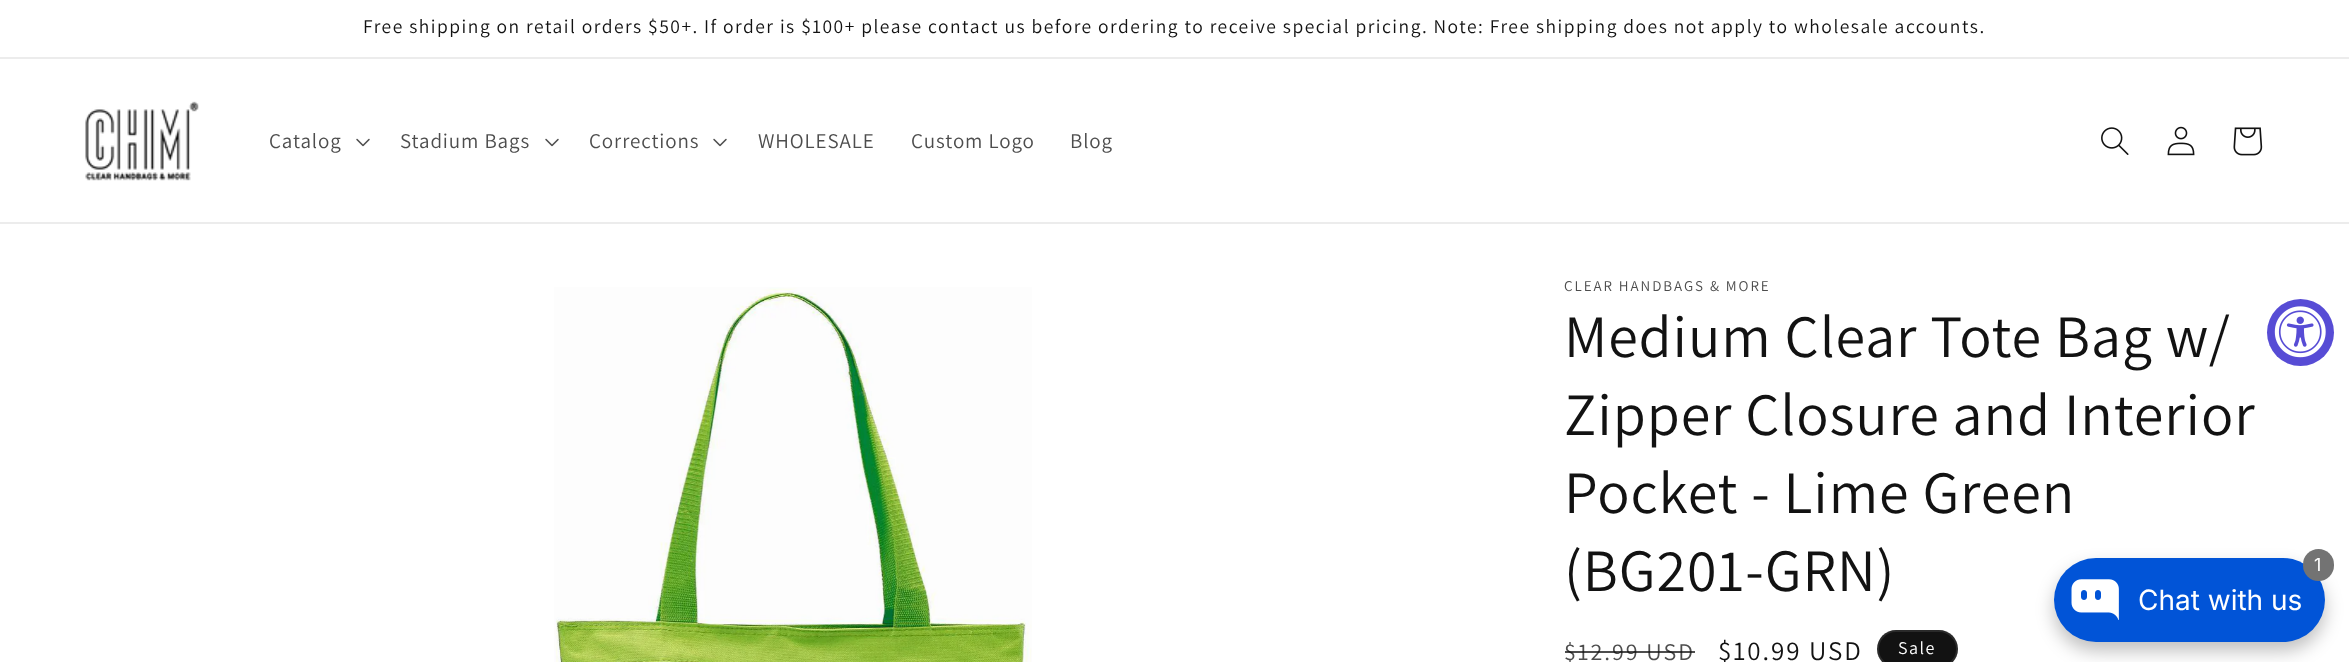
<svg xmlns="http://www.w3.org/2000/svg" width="2349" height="662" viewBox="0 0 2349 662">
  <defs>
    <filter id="blur1" x="-50%" y="-200%" width="200%" height="500%"><feGaussianBlur stdDeviation="9"/></filter>
  </defs>
  <rect width="100%" height="100%" fill="#ffffff"/>
  <rect x="0" y="57" width="2349" height="2" fill="#ececec"/>
  <text x="363" y="33" font-family="Assistant" font-size="19.5" letter-spacing="1.5" fill="#121212">Free shipping on retail orders $50+. If order is $100+ please contact us before ordering to receive special pricing. Note: Free shipping does not apply to wholesale accounts.</text>
  <rect x="0" y="222" width="2349" height="2" fill="#ececec"/>
  <image x="85" y="101" width="114" height="80" href="img1.png"/>
  <text x="269" y="148" font-family="Assistant" font-size="21" letter-spacing="0.9" fill="#4d4d4d">Catalog</text>
  <image x="356" y="138" width="14" height="9" href="img2.png"/>
  <text x="400" y="148" font-family="Assistant" font-size="21" letter-spacing="0.9" fill="#4d4d4d">Stadium Bags</text>
  <image x="545" y="138" width="14" height="9" href="img2.png"/>
  <text x="589" y="148" font-family="Assistant" font-size="21" letter-spacing="0.9" fill="#4d4d4d">Corrections</text>
  <image x="713" y="138" width="14" height="9" href="img2.png"/>
  <text x="758" y="148" font-family="Assistant" font-size="21" letter-spacing="0.9" fill="#4d4d4d">WHOLESALE</text>
  <text x="911" y="148" font-family="Assistant" font-size="21" letter-spacing="0.9" fill="#4d4d4d">Custom Logo</text>
  <text x="1070" y="148" font-family="Assistant" font-size="21" letter-spacing="0.9" fill="#4d4d4d">Blog</text>
  <image x="2101" y="127" width="28" height="28" href="img3.png"/>
  <image x="2167" y="126" width="28" height="30" href="img4.png"/>
  <image x="2233" y="127" width="30" height="29" href="img5.png"/>
  <image x="554" y="287" width="478" height="375" href="img6.png"/>
  <text x="1564" y="291" font-family="Assistant" font-size="15" letter-spacing="1.95" fill="#4d4d4d">CLEAR HANDBAGS &amp; MORE</text>
  <text x="1564" y="357" font-family="Assistant" font-size="60" letter-spacing="0.9" fill="#121212">Medium Clear Tote Bag w/</text>
  <text x="1564" y="435" font-family="Assistant" font-size="60" letter-spacing="0.9" fill="#121212">Zipper Closure and Interior</text>
  <text x="1564" y="513" font-family="Assistant" font-size="60" letter-spacing="0.9" fill="#121212">Pocket - Lime Green</text>
  <text x="1564" y="591" font-family="Assistant" font-size="60" letter-spacing="0.9" fill="#121212">(BG201-GRN)</text>
  <text x="1564" y="660" font-family="Assistant" font-size="24" letter-spacing="1.95" fill="#4d4d4d">$12.99 USD</text>
  <rect x="1565" y="651" width="130" height="2" fill="#121212" fill-opacity="0.75"/>
  <text x="1718" y="660" font-family="Assistant" font-size="27" letter-spacing="1.95" fill="#121212">$10.99 USD</text>
  <rect x="1877" y="630" width="81" height="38" rx="19" fill="#121212"/>
  <rect x="1878" y="631" width="79" height="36" rx="18" fill="none" stroke="#ffffff" stroke-opacity="0.1" stroke-width="2"/>
  <text x="1898" y="654" font-family="Assistant" font-size="18" letter-spacing="1.5" fill="#ffffff">Sale</text>
  <circle cx="2300.5" cy="332.5" r="33.5" fill="#574cd5"/>
  <image x="2274" y="306" width="52" height="52" href="img7.png"/>
  <rect x="2054" y="567" width="271" height="84" rx="42" fill="#000000" fill-opacity="0.25" filter="url(#blur1)"/>
  <rect x="2054" y="558" width="271" height="84" rx="42" fill="#0154d7"/>
  <rect x="2303" y="549" width="31" height="32" rx="15.5" fill="#737373"/>
  <text x="2314" y="571" font-family="Inter" font-size="18" letter-spacing="0.9" fill="#ffffff">1</text>
  <image x="2071" y="579" width="48" height="41" href="img8.png"/>
  <text x="2138" y="610" font-family="Inter" font-size="28" fill="#ffffff">Chat with us</text>
</svg>
